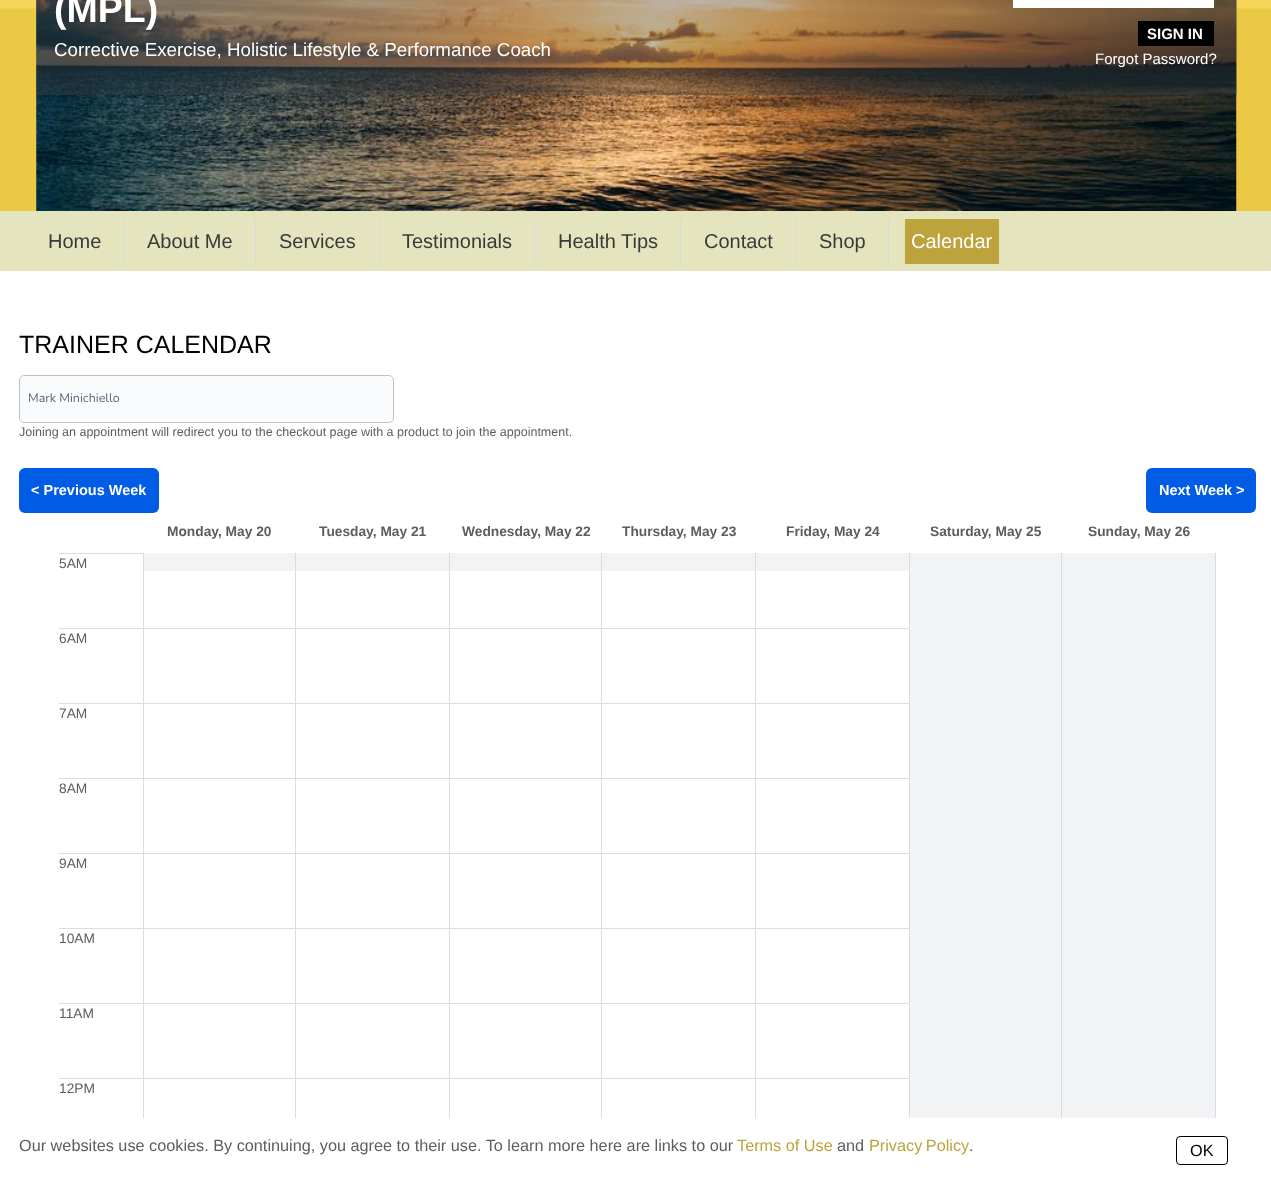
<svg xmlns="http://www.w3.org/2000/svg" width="1271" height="1183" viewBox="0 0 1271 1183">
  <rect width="100%" height="100%" fill="#ffffff"/>
  <image x="0" y="0" width="1271" height="211" href="img1.png"/>
  <image x="36" y="0" width="1201" height="211" href="img2.png"/>
  <rect x="36" y="0" width="1201" height="95" fill="#464646" fill-opacity="0.35"/>
  <text x="54" y="22" font-family="Liberation Sans" font-size="37.5" font-weight="bold" fill="#ffffff">(MPL)</text>
  <text x="54" y="56" font-family="Liberation Sans" font-size="18.75" fill="#ffffff">Corrective Exercise, Holistic Lifestyle &amp; Performance Coach</text>
  <rect x="1013" y="0" width="201" height="8" fill="#ffffff"/>
  <rect x="1138" y="21" width="76" height="25" fill="#000000"/>
  <text x="1147" y="39" font-family="Liberation Sans" font-size="15" font-weight="bold" fill="#ffffff">SIGN IN</text>
  <text x="1095" y="64" font-family="Liberation Sans" font-size="15" fill="#ffffff">Forgot Password?</text>
  <rect x="0" y="211" width="1271" height="60" fill="#e4e4be"/>
  <rect x="124" y="219" width="1" height="45" fill="#dadada"/>
  <text x="48" y="248" font-family="Liberation Sans" font-size="20" fill="#3a3a3a">Home</text>
  <rect x="255" y="219" width="1" height="45" fill="#dadada"/>
  <text x="147" y="248" font-family="Liberation Sans" font-size="20" fill="#3a3a3a">About Me</text>
  <rect x="379" y="219" width="1" height="45" fill="#dadada"/>
  <text x="279" y="248" font-family="Liberation Sans" font-size="20" fill="#3a3a3a">Services</text>
  <rect x="534" y="219" width="1" height="45" fill="#dadada"/>
  <text x="402" y="248" font-family="Liberation Sans" font-size="20" fill="#3a3a3a">Testimonials</text>
  <rect x="680" y="219" width="1" height="45" fill="#dadada"/>
  <text x="558" y="248" font-family="Liberation Sans" font-size="20" fill="#3a3a3a">Health Tips</text>
  <rect x="795" y="219" width="1" height="45" fill="#dadada"/>
  <text x="704" y="248" font-family="Liberation Sans" font-size="20" fill="#3a3a3a">Contact</text>
  <rect x="888" y="219" width="1" height="45" fill="#dadada"/>
  <text x="819" y="248" font-family="Liberation Sans" font-size="20" fill="#3a3a3a">Shop</text>
  <rect x="905" y="219" width="94" height="45" fill="#bca33c"/>
  <text x="911" y="248" font-family="Liberation Sans" font-size="20" fill="#ffffff">Calendar</text>
  <text x="19" y="353" font-family="Liberation Sans" font-size="25" fill="#000000">TRAINER CALENDAR</text>
  <rect x="19.5" y="375.5" width="374" height="47" rx="4.5" fill="#fafbfc" stroke="#bcc5cd"/>
  <text x="28" y="402" font-family="Nunito" font-size="12.5" fill="#5c6a79">Mark Minichiello</text>
  <text x="19" y="436" font-family="Liberation Sans" font-size="12.5" fill="#5d5d5d">Joining an appointment will redirect you to the checkout page with a product to join the appointment.</text>
  <rect x="19" y="468" width="140" height="45" rx="6" fill="#005ce5"/>
  <text x="31" y="495" font-family="Liberation Sans" font-size="14.5" font-weight="bold" fill="#ffffff">&lt; Previous Week</text>
  <rect x="1146" y="468" width="110" height="45" rx="6" fill="#005ce5"/>
  <text x="1159" y="495" font-family="Liberation Sans" font-size="14.5" font-weight="bold" fill="#ffffff">Next Week &gt;</text>
  <text x="167" y="536" font-family="Liberation Sans" font-size="13.75" font-weight="bold" fill="#5d5d5d">Monday, May 20</text>
  <text x="319" y="536" font-family="Liberation Sans" font-size="13.75" font-weight="bold" fill="#5d5d5d">Tuesday, May 21</text>
  <text x="462" y="536" font-family="Liberation Sans" font-size="13.75" font-weight="bold" fill="#5d5d5d">Wednesday, May 22</text>
  <text x="622" y="536" font-family="Liberation Sans" font-size="13.75" font-weight="bold" fill="#5d5d5d">Thursday, May 23</text>
  <text x="786" y="536" font-family="Liberation Sans" font-size="13.75" font-weight="bold" fill="#5d5d5d">Friday, May 24</text>
  <text x="930" y="536" font-family="Liberation Sans" font-size="13.75" font-weight="bold" fill="#5d5d5d">Saturday, May 25</text>
  <text x="1088" y="536" font-family="Liberation Sans" font-size="13.75" font-weight="bold" fill="#5d5d5d">Sunday, May 26</text>
  <rect x="59" y="553" width="85" height="1" fill="#dadce0"/>
  <rect x="143" y="553" width="1" height="75" fill="#dadce0"/>
  <text x="59" y="568" font-family="Liberation Sans" font-size="13.75" fill="#5d5d5d">5AM</text>
  <rect x="144" y="553" width="151" height="18" fill="#f2f3f5"/>
  <rect x="295" y="553" width="1" height="75" fill="#dadce0"/>
  <rect x="296" y="553" width="153" height="18" fill="#f2f3f5"/>
  <rect x="449" y="553" width="1" height="75" fill="#dadce0"/>
  <rect x="450" y="553" width="305" height="18" fill="#f2f3f5"/>
  <rect x="601" y="553" width="1" height="75" fill="#dadce0"/>
  <rect x="755" y="553" width="1" height="75" fill="#dadce0"/>
  <rect x="756" y="553" width="153" height="18" fill="#f2f3f5"/>
  <rect x="909" y="553" width="1" height="75" fill="#dadce0"/>
  <rect x="910" y="553" width="305" height="565" fill="#f2f3f5"/>
  <rect x="1061" y="553" width="1" height="565" fill="#dadce0"/>
  <rect x="1215" y="553" width="1" height="565" fill="#dadce0"/>
  <rect x="59" y="628" width="851" height="1" fill="#dadce0"/>
  <rect x="143" y="628" width="1" height="75" fill="#dadce0"/>
  <text x="59" y="643" font-family="Liberation Sans" font-size="13.75" fill="#5d5d5d">6AM</text>
  <rect x="295" y="628" width="1" height="75" fill="#dadce0"/>
  <rect x="449" y="628" width="1" height="75" fill="#dadce0"/>
  <rect x="601" y="628" width="1" height="75" fill="#dadce0"/>
  <rect x="755" y="628" width="1" height="75" fill="#dadce0"/>
  <rect x="909" y="628" width="1" height="75" fill="#dadce0"/>
  <rect x="59" y="703" width="851" height="1" fill="#dadce0"/>
  <rect x="143" y="703" width="1" height="75" fill="#dadce0"/>
  <text x="59" y="718" font-family="Liberation Sans" font-size="13.75" fill="#5d5d5d">7AM</text>
  <rect x="295" y="703" width="1" height="75" fill="#dadce0"/>
  <rect x="449" y="703" width="1" height="75" fill="#dadce0"/>
  <rect x="601" y="703" width="1" height="75" fill="#dadce0"/>
  <rect x="755" y="703" width="1" height="75" fill="#dadce0"/>
  <rect x="909" y="703" width="1" height="75" fill="#dadce0"/>
  <rect x="59" y="778" width="851" height="1" fill="#dadce0"/>
  <rect x="143" y="778" width="1" height="75" fill="#dadce0"/>
  <text x="59" y="793" font-family="Liberation Sans" font-size="13.75" fill="#5d5d5d">8AM</text>
  <rect x="295" y="778" width="1" height="75" fill="#dadce0"/>
  <rect x="449" y="778" width="1" height="75" fill="#dadce0"/>
  <rect x="601" y="778" width="1" height="75" fill="#dadce0"/>
  <rect x="755" y="778" width="1" height="75" fill="#dadce0"/>
  <rect x="909" y="778" width="1" height="75" fill="#dadce0"/>
  <rect x="59" y="853" width="851" height="1" fill="#dadce0"/>
  <rect x="143" y="853" width="1" height="75" fill="#dadce0"/>
  <text x="59" y="868" font-family="Liberation Sans" font-size="13.75" fill="#5d5d5d">9AM</text>
  <rect x="295" y="853" width="1" height="75" fill="#dadce0"/>
  <rect x="449" y="853" width="1" height="75" fill="#dadce0"/>
  <rect x="601" y="853" width="1" height="75" fill="#dadce0"/>
  <rect x="755" y="853" width="1" height="75" fill="#dadce0"/>
  <rect x="909" y="853" width="1" height="75" fill="#dadce0"/>
  <rect x="59" y="928" width="851" height="1" fill="#dadce0"/>
  <rect x="143" y="928" width="1" height="75" fill="#dadce0"/>
  <text x="59" y="943" font-family="Liberation Sans" font-size="13.75" fill="#5d5d5d">10AM</text>
  <rect x="295" y="928" width="1" height="75" fill="#dadce0"/>
  <rect x="449" y="928" width="1" height="75" fill="#dadce0"/>
  <rect x="601" y="928" width="1" height="75" fill="#dadce0"/>
  <rect x="755" y="928" width="1" height="75" fill="#dadce0"/>
  <rect x="909" y="928" width="1" height="75" fill="#dadce0"/>
  <rect x="59" y="1003" width="851" height="1" fill="#dadce0"/>
  <rect x="143" y="1003" width="1" height="75" fill="#dadce0"/>
  <text x="59" y="1018" font-family="Liberation Sans" font-size="13.75" fill="#5d5d5d">11AM</text>
  <rect x="295" y="1003" width="1" height="75" fill="#dadce0"/>
  <rect x="449" y="1003" width="1" height="75" fill="#dadce0"/>
  <rect x="601" y="1003" width="1" height="75" fill="#dadce0"/>
  <rect x="755" y="1003" width="1" height="75" fill="#dadce0"/>
  <rect x="909" y="1003" width="1" height="75" fill="#dadce0"/>
  <rect x="59" y="1078" width="851" height="1" fill="#dadce0"/>
  <rect x="143" y="1078" width="1" height="40" fill="#dadce0"/>
  <text x="59" y="1093" font-family="Liberation Sans" font-size="13.75" fill="#5d5d5d">12PM</text>
  <rect x="295" y="1078" width="1" height="43" fill="#dadce0"/>
  <rect x="449" y="1078" width="1" height="43" fill="#dadce0"/>
  <rect x="601" y="1078" width="1" height="43" fill="#dadce0"/>
  <rect x="755" y="1078" width="1" height="43" fill="#dadce0"/>
  <rect x="909" y="1078" width="1" height="43" fill="#dadce0"/>
  <rect x="295" y="1118" width="615" height="3" fill="#ffffff"/>
  <text x="19" y="1151" font-family="Liberation Sans" font-size="16.25" fill="#5d5d5d">Our websites use cookies. By continuing, you agree to their use. To learn more here are links to our</text>
  <text x="737" y="1151" font-family="Liberation Sans" font-size="16.25" fill="#bca33c">Terms of Use</text>
  <text x="837" y="1151" font-family="Liberation Sans" font-size="16.25" fill="#5d5d5d">and</text>
  <text x="869" y="1151" word-spacing="-1" font-family="Liberation Sans" font-size="16.25" fill="#bca33c">Privacy Policy</text>
  <text x="969" y="1151" font-family="Liberation Sans" font-size="16.25" fill="#5d5d5d">.</text>
  <rect x="1176.5" y="1136.5" width="51" height="28" rx="3.5" fill="none" stroke="#000000"/>
  <text x="1190" y="1156" font-family="Liberation Sans" font-size="16.25" fill="#000000">OK</text>
</svg>
